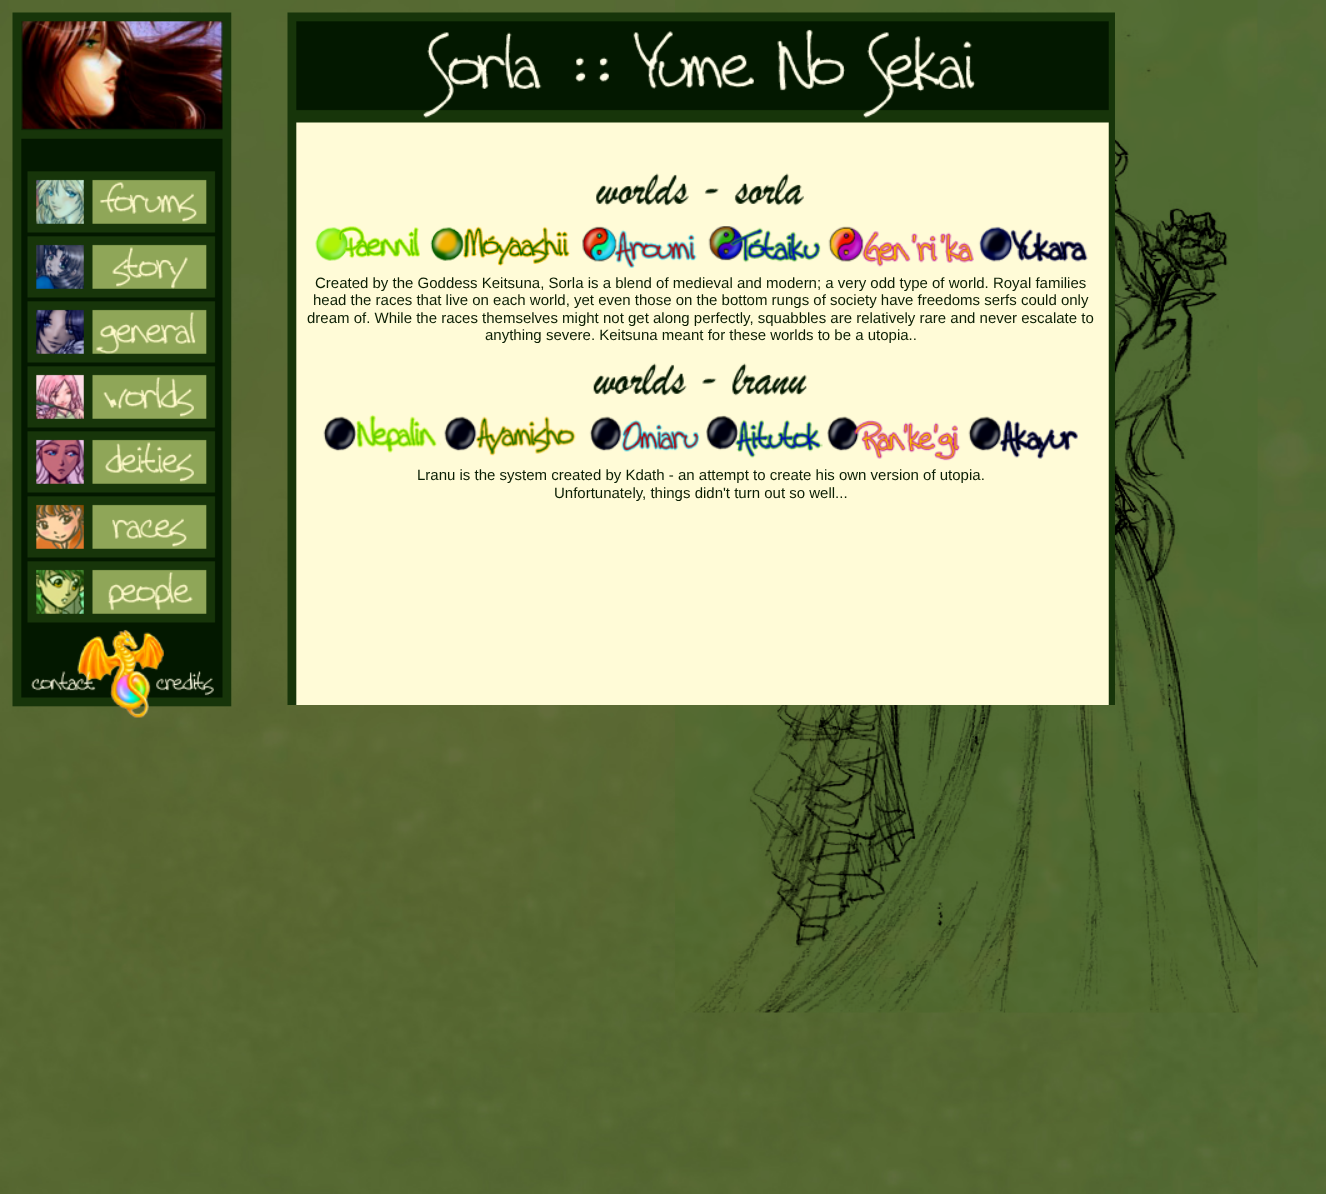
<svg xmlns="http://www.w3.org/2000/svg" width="1326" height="1194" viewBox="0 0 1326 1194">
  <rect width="100%" height="100%" fill="#ffffff"/>
  <image x="0" y="0" width="1326" height="1194" href="img1.png"/>
  <image x="12" y="12" width="220" height="706" href="img2.png"/>
  <image x="675" y="0" width="583" height="1013" href="img3.png"/>
  <image x="287" y="12" width="828" height="693" href="img4.png"/>
  <image x="596" y="173" width="208" height="33" href="img5.png"/>
  <image x="315" y="226" width="105" height="35" href="img6.png"/>
  <image x="430" y="226" width="140" height="41" href="img7.png"/>
  <image x="582" y="226" width="115" height="42" href="img8.png"/>
  <image x="708" y="226" width="113" height="37" href="img9.png"/>
  <image x="828" y="226" width="146" height="41" href="img10.png"/>
  <image x="978" y="226" width="110" height="36" href="img11.png"/>
  <text x="315" y="288" font-family="Liberation Sans" font-size="15" fill="#0b1e03">Created by the Goddess Keitsuna, Sorla is a blend of medieval and modern; a very odd type of world. Royal families</text>
  <text x="313" y="305" font-family="Liberation Sans" font-size="15" fill="#0b1e03">head the races that live on each world, yet even those on the bottom rungs of society have freedoms serfs could only</text>
  <text x="307" y="323" font-family="Liberation Sans" font-size="15" fill="#0b1e03">dream of. While the races themselves might not get along perfectly, squabbles are relatively rare and never escalate to</text>
  <text x="485" y="340" font-family="Liberation Sans" font-size="15" fill="#0b1e03">anything severe. Keitsuna meant for these worlds to be a utopia..</text>
  <image x="593" y="363" width="214" height="33" href="img12.png"/>
  <image x="323" y="414" width="114" height="39" href="img13.png"/>
  <image x="440" y="416" width="136" height="40" href="img14.png"/>
  <image x="589" y="416" width="111" height="36" href="img15.png"/>
  <image x="706" y="415" width="116" height="43" href="img16.png"/>
  <image x="821" y="416" width="140" height="45" href="img17.png"/>
  <image x="968" y="416" width="110" height="43" href="img18.png"/>
  <text x="417" y="480" font-family="Liberation Sans" font-size="15" fill="#0b1e03">Lranu is the system created by Kdath - an attempt to create his own version of utopia.</text>
  <text x="554" y="498" font-family="Liberation Sans" font-size="15" fill="#0b1e03">Unfortunately, things didn't turn out so well...</text>
</svg>
